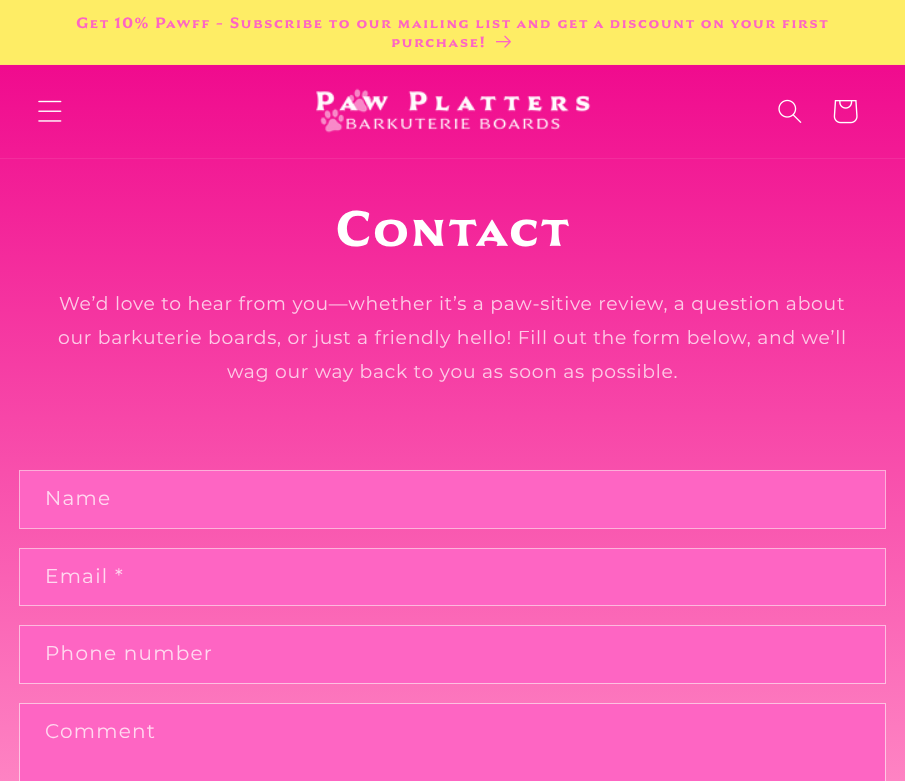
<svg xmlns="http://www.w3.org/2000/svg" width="905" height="781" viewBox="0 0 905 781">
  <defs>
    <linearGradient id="g1" gradientUnits="userSpaceOnUse" x1="452" y1="0" x2="453" y2="781"><stop offset="0" stop-color="#ef0089"/><stop offset="1" stop-color="#fe83c3"/></linearGradient>
  </defs>
  <rect width="100%" height="100%" fill="#ffffff"/>
  <rect x="0" y="0" width="905" height="64" fill="#feed65"/>
  <rect x="0" y="64" width="905" height="1" fill="#fee26d"/>
  <text x="76" y="28" font-family="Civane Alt" font-size="15" font-weight="800" letter-spacing="1.25" fill="#fe65c3">Get 10% Pawff - Subscribe to our mailing list and get a discount on your first</text>
  <text x="391" y="47" font-family="Civane Alt" font-size="15" font-weight="800" letter-spacing="1.25" fill="#fe65c3">purchase!</text>
  <image x="496" y="35" width="15" height="13" href="img1.png"/>
  <rect x="0" y="65" width="905" height="93" fill="url(#g1)"/>
  <rect x="0" y="158" width="905" height="1" fill="#f32d9d"/>
  <image x="38" y="100" width="24" height="22" href="img2.png"/>
  <image x="316" y="88" width="275" height="45" href="img3.png"/>
  <image x="778" y="99" width="24" height="24" href="img4.png"/>
  <image x="833" y="100" width="25" height="24" href="img5.png"/>
  <rect x="0" y="159" width="905" height="277" fill="url(#g1)"/>
  <text x="335" y="246" font-family="Civane Alt" font-size="50" font-weight="800" letter-spacing="0.75" fill="#ffffff">Contact</text>
  <text x="59" y="310" font-family="Montserrat" font-size="18.75" letter-spacing="0.75" fill="#fdcce7">We’d love to hear from you—whether it’s a paw-sitive review, a question about</text>
  <text x="58" y="344" font-family="Montserrat" font-size="18.75" letter-spacing="0.75" fill="#fdcce7">our barkuterie boards, or just a friendly hello! Fill out the form below, and we’ll</text>
  <text x="227" y="378" font-family="Montserrat" font-size="18.75" letter-spacing="0.75" fill="#fdcce7">wag our way back to you as soon as possible.</text>
  <rect x="0" y="436" width="905" height="345" fill="url(#g1)"/>
  <rect x="20" y="471" width="865" height="57" fill="#fe65c3"/>
  <rect x="19.5" y="470.5" width="866" height="58" fill="none" stroke="#ffffff" stroke-opacity="0.55"/>
  <text x="45" y="505" font-family="Montserrat" font-size="20" letter-spacing="1.25" fill="#ffd9f0">Name</text>
  <rect x="20" y="549" width="865" height="56" fill="#fe65c3"/>
  <rect x="19.5" y="548.5" width="866" height="57" fill="none" stroke="#ffffff" stroke-opacity="0.55"/>
  <text x="45" y="583" font-family="Montserrat" font-size="20" letter-spacing="1.25" fill="#ffd9f0">Email *</text>
  <rect x="20" y="626" width="865" height="57" fill="#fe65c3"/>
  <rect x="19.5" y="625.5" width="866" height="58" fill="none" stroke="#ffffff" stroke-opacity="0.55"/>
  <text x="45" y="660" font-family="Montserrat" font-size="20" letter-spacing="1.25" fill="#ffd9f0">Phone number</text>
  <rect x="20" y="704" width="865" height="77" fill="#fe65c3"/>
  <rect x="19.5" y="703.5" width="866" height="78" fill="none" stroke="#ffffff" stroke-opacity="0.55"/>
  <text x="45" y="738" font-family="Montserrat" font-size="20" letter-spacing="1.25" fill="#ffd9f0">Comment</text>
</svg>
